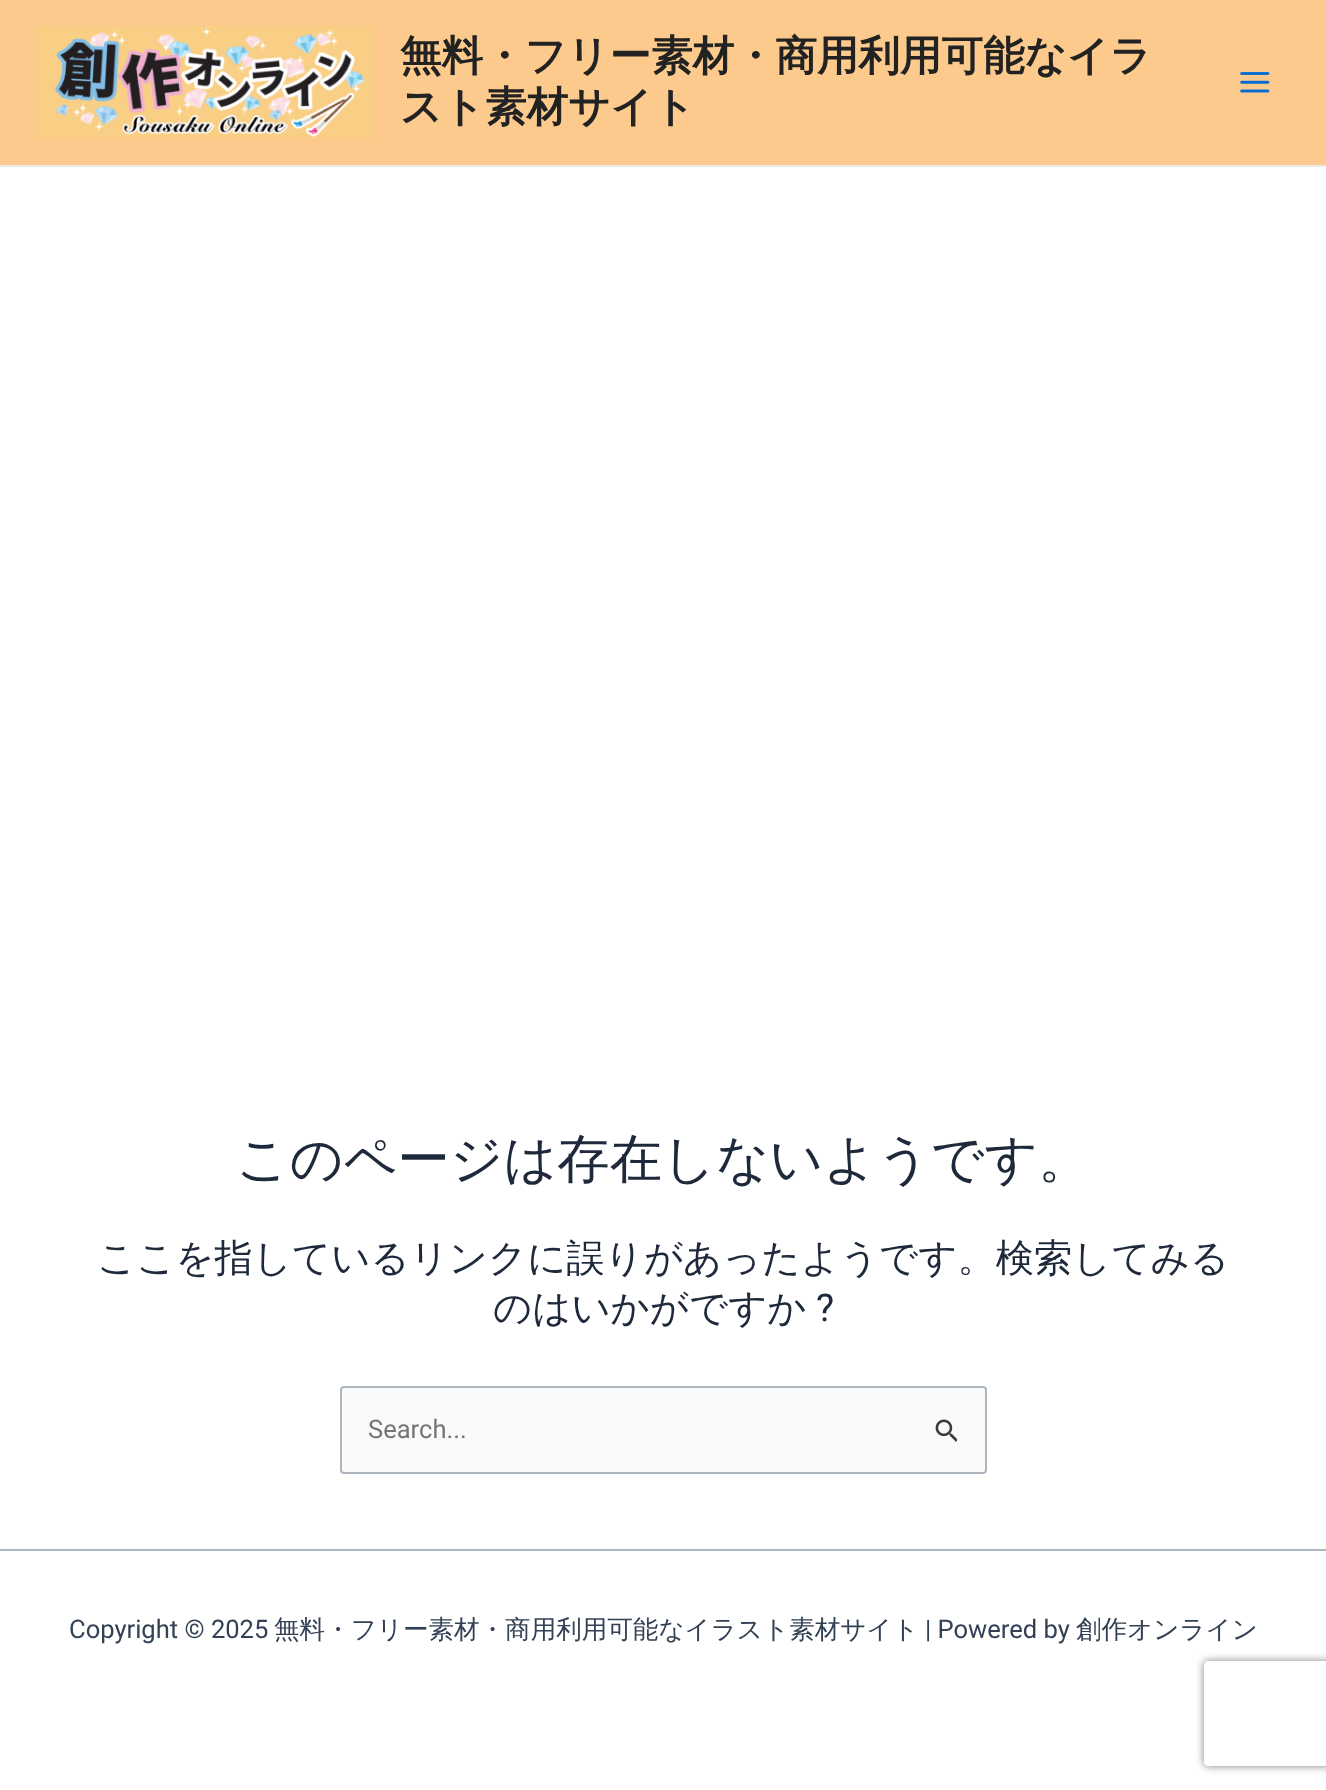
<svg xmlns="http://www.w3.org/2000/svg" width="1326" height="1790" viewBox="0 0 1326 1790">
  <defs>
    <clipPath id="clip1"><path d="M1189 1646H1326V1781H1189ZM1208 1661H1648C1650 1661 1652 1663 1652 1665V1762C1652 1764 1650 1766 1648 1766H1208C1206 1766 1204 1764 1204 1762V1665C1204 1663 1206 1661 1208 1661Z" clip-rule="evenodd"/></clipPath>
    <filter id="blur1" x="-50%" y="-200%" width="200%" height="500%"><feGaussianBlur stdDeviation="4.5"/></filter>
  </defs>
  <rect width="100%" height="100%" fill="#ffffff"/>
  <rect x="0" y="0" width="1326" height="165" fill="#fcca8d"/>
  <rect x="0" y="165" width="1326" height="2" fill="#eaeaea"/>
  <image x="35" y="26" width="340" height="112" href="img1.png"/>
  <text x="400" y="70" font-family="WenQuanYi Zen Hei" font-size="41.5" font-weight="bold" fill="#222222">無料・フリー素材・商用利用可能なイラ</text>
  <text x="400" y="121" font-family="WenQuanYi Zen Hei" font-size="41.5" font-weight="bold" fill="#222222">スト素材サイト</text>
  <image x="1240" y="72" width="30" height="21" href="img2.png"/>
  <text x="236" y="1177" font-family="WenQuanYi Zen Hei" font-size="52.5" font-weight="500" fill="#1e293b">このページは存在しないようです。</text>
  <text x="97" y="1271" font-family="WenQuanYi Zen Hei" font-size="38.3" font-weight="500" fill="#1e293b">ここを指しているリンクに誤りがあったようです。検索してみる</text>
  <text x="493" y="1321" font-family="WenQuanYi Zen Hei" font-size="38.3" font-weight="500" fill="#1e293b">のはいかがですか</text>
  <text x="816" y="1321" font-family="Roboto" font-size="38.3" fill="#1e293b">?</text>
  <rect x="341" y="1387" width="645" height="86" rx="3" fill="#fafafa" stroke="#adb6be" stroke-width="2"/>
  <text x="368" y="1438" font-family="Roboto" font-size="25.55" fill="#757575">Search...</text>
  <image x="935" y="1419" width="22" height="23" href="img3.png"/>
  <rect x="0" y="1549" width="1326" height="2" fill="#adb6be"/>
  <text x="69" y="1638" font-family="Roboto" font-size="25.55" fill="#334155">Copyright © 2025</text>
  <text x="274" y="1638" font-family="WenQuanYi Zen Hei" font-size="25.55" font-weight="500" fill="#334155">無料・フリー素材・商用利用可能なイラスト素材サイト</text>
  <text x="925" y="1638" font-family="Roboto" font-size="25.55" fill="#334155">| Powered by</text>
  <text x="1076" y="1638" font-family="WenQuanYi Zen Hei" font-size="25.55" font-weight="500" fill="#334155">創作オンライン</text>
  <g clip-path="url(#clip1)">
    <rect x="1204" y="1661" width="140" height="105" rx="4" fill="#808080" filter="url(#blur1)"/>
  </g>
</svg>
